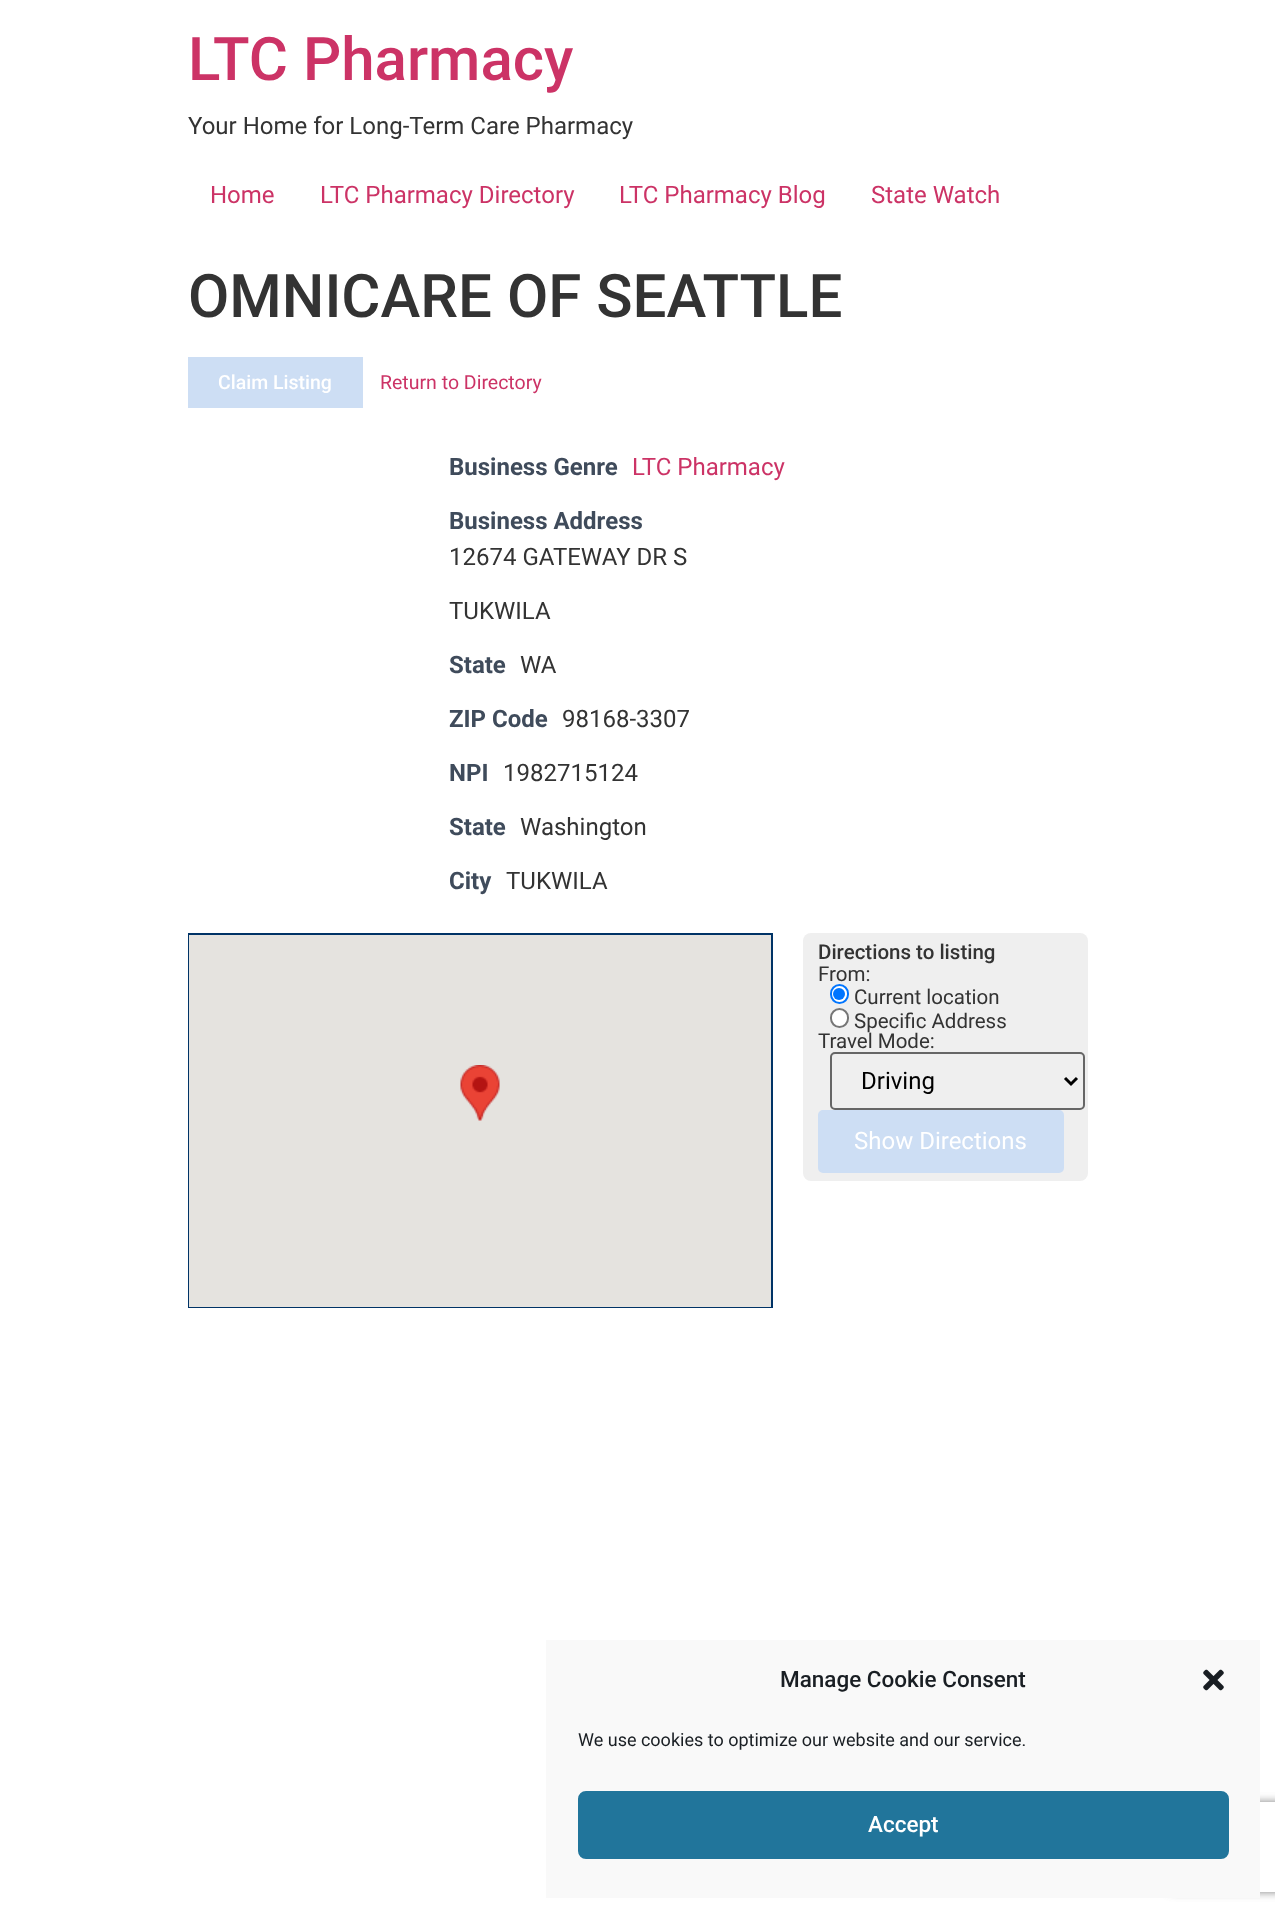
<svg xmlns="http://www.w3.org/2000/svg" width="1275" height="1912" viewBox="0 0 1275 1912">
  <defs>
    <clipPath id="clip1"><path d="M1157 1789H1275V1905H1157ZM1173 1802H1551C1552.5 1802 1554 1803.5 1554 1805V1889C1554 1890.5 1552.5 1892 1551 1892H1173C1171.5 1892 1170 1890.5 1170 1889V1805C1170 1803.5 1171.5 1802 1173 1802Z" clip-rule="evenodd"/></clipPath>
    <filter id="blur1" x="-50%" y="-200%" width="200%" height="500%"><feGaussianBlur stdDeviation="4"/></filter>
  </defs>
  <rect width="100%" height="100%" fill="#ffffff"/>
  <text x="188" y="80" font-family="Roboto" font-size="60" font-weight="500" fill="#cc3366">LTC Pharmacy</text>
  <text x="188" y="134" font-family="Roboto" font-size="24" fill="#333333">Your Home for Long-Term Care Pharmacy</text>
  <text x="210" y="203" font-family="Roboto" font-size="24" fill="#cc3366">Home</text>
  <text x="320" y="203" font-family="Roboto" font-size="24" fill="#cc3366">LTC Pharmacy Directory</text>
  <text x="619" y="203" font-family="Roboto" font-size="24" fill="#cc3366">LTC Pharmacy Blog</text>
  <text x="871" y="203" font-family="Roboto" font-size="24" fill="#cc3366">State Watch</text>
  <text x="188" y="317" font-family="Roboto" font-size="60" font-weight="500" fill="#333333">OMNICARE OF SEATTLE</text>
  <rect x="188" y="357" width="175" height="51" fill="#cddef4"/>
  <text x="218" y="389" font-family="Roboto" font-size="19.5" font-weight="500" fill="#ffffff">Claim Listing</text>
  <text x="380" y="389" font-family="Roboto" font-size="19.5" fill="#cc3366">Return to Directory</text>
  <text x="449" y="475" font-family="Roboto" font-size="24" font-weight="bold" fill="#3f4b5b">Business Genre</text>
  <text x="632" y="475" font-family="Roboto" font-size="24" fill="#cc3366">LTC Pharmacy</text>
  <text x="449" y="529" font-family="Roboto" font-size="24" font-weight="bold" fill="#3f4b5b">Business Address</text>
  <text x="449" y="565" font-family="Roboto" font-size="24" fill="#333333">12674 GATEWAY DR S</text>
  <text x="449" y="619" font-family="Roboto" font-size="24" fill="#333333">TUKWILA</text>
  <text x="449" y="673" font-family="Roboto" font-size="24" font-weight="bold" fill="#3f4b5b">State</text>
  <text x="520" y="673" font-family="Roboto" font-size="24" fill="#333333">WA</text>
  <text x="449" y="727" font-family="Roboto" font-size="24" font-weight="bold" fill="#3f4b5b">ZIP Code</text>
  <text x="562" y="727" font-family="Roboto" font-size="24" fill="#333333">98168-3307</text>
  <text x="449" y="781" font-family="Roboto" font-size="24" font-weight="bold" fill="#3f4b5b">NPI</text>
  <text x="503" y="781" font-family="Roboto" font-size="24" fill="#333333">1982715124</text>
  <text x="449" y="835" font-family="Roboto" font-size="24" font-weight="bold" fill="#3f4b5b">State</text>
  <text x="520" y="835" font-family="Roboto" font-size="24" fill="#333333">Washington</text>
  <text x="449" y="889" font-family="Roboto" font-size="24" font-weight="bold" fill="#3f4b5b">City</text>
  <text x="506" y="889" font-family="Roboto" font-size="24" fill="#333333">TUKWILA</text>
  <rect x="189" y="934" width="583" height="373" fill="none" stroke="#003366" stroke-width="2"/>
  <rect x="189" y="935" width="582" height="372" fill="#e5e3df"/>
  <image x="460" y="1065" width="40" height="56" href="img1.png"/>
  <rect x="803" y="933" width="285" height="248" rx="8" fill="#efefef"/>
  <text x="818" y="959" font-family="Roboto" font-size="20.5" font-weight="500" fill="#333333">Directions to listing</text>
  <text x="818" y="981" font-family="Roboto" font-size="20.5" fill="#333333">From:</text>
  <rect x="831" y="985" width="17" height="18" rx="8.5" fill="#ffffff" stroke="#0075ff" stroke-width="2"/>
  <circle cx="839" cy="994" r="6" fill="#0075ff"/>
  <text x="854" y="1004" font-family="Roboto" font-size="20.5" fill="#333333">Current location</text>
  <rect x="831" y="1009" width="17" height="18" rx="8.5" fill="#ffffff" stroke="#767676" stroke-width="2"/>
  <text x="854" y="1028" font-family="Roboto" font-size="20.5" fill="#333333">Specific Address</text>
  <text x="818" y="1048" font-family="Roboto" font-size="20.5" fill="#333333">Travel Mode:</text>
  <rect x="831" y="1053" width="253" height="56" rx="4" fill="none" stroke="#666666" stroke-width="2"/>
  <path d="M1065 1078L1071 1084L1077 1078" fill="none" stroke="#000000" stroke-width="3"/>
  <text x="861" y="1089" font-family="Roboto" font-size="24" fill="#000000">Driving</text>
  <rect x="819" y="1111" width="244" height="61" rx="4" fill="#cddef4" stroke="#cddef4" stroke-width="2"/>
  <text x="854" y="1149" font-family="Roboto" font-size="24" fill="#ffffff">Show Directions</text>
  <g clip-path="url(#clip1)">
    <rect x="1170" y="1802" width="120" height="90" rx="3" fill="#808080" filter="url(#blur1)"/>
  </g>
  <rect x="546" y="1640" width="714" height="258" fill="#f9f9f9"/>
  <text x="780" y="1687" font-family="Roboto" font-size="22.5" font-weight="500" fill="#191e23">Manage Cookie Consent</text>
  <image x="1203" y="1669" width="21" height="22" href="img2.png"/>
  <text x="578" y="1746" font-family="Roboto" font-size="18" fill="#191e23">We use cookies to optimize our website and our service.</text>
  <rect x="579" y="1792" width="649" height="66" rx="7" fill="#21759b" stroke="#21759b" stroke-width="2"/>
  <text x="868" y="1832" font-family="Roboto" font-size="22.5" font-weight="500" fill="#ffffff">Accept</text>
</svg>
